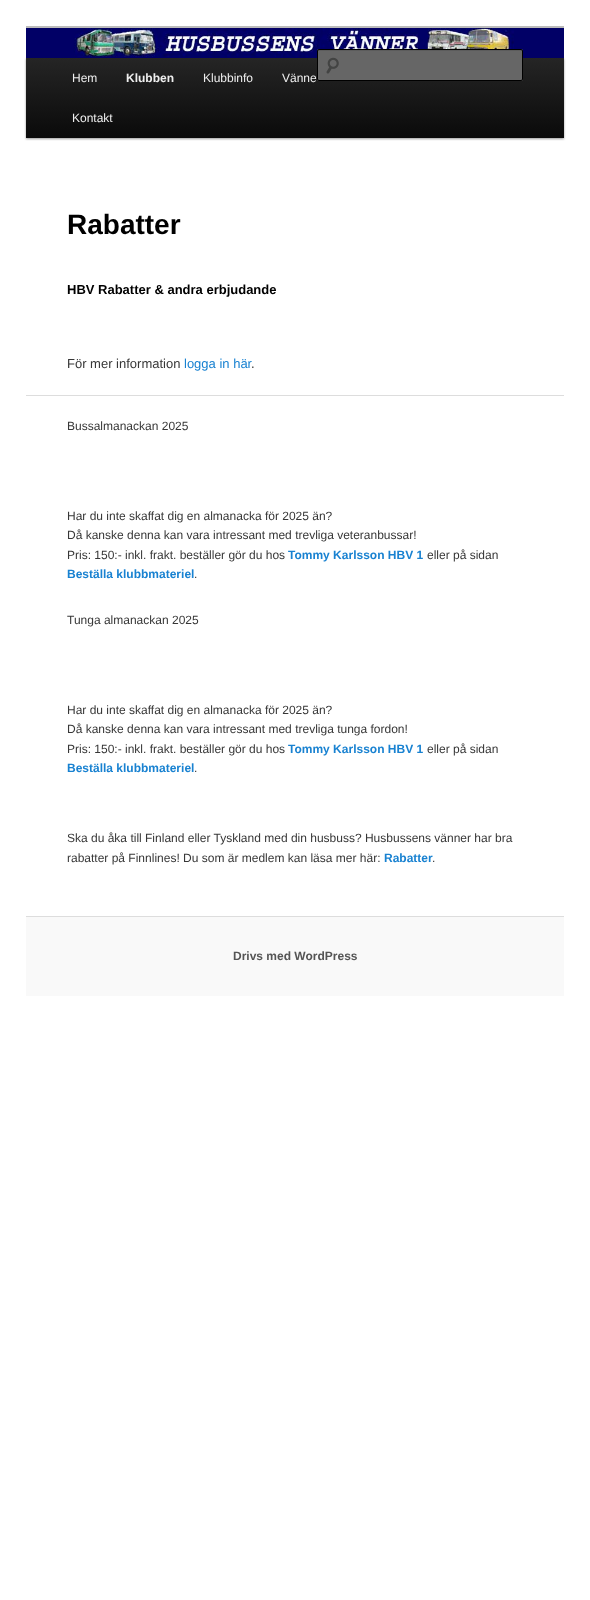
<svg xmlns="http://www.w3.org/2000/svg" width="590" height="1600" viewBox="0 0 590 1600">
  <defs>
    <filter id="blur1" x="-50%" y="-200%" width="200%" height="500%"><feGaussianBlur stdDeviation="1"/></filter>
    <linearGradient id="g1" gradientUnits="userSpaceOnUse" x1="295" y1="58" x2="295" y2="138"><stop offset="0" stop-color="#252525"/><stop offset="1" stop-color="#0a0a0a"/></linearGradient>
  </defs>
  <rect width="100%" height="100%" fill="#ffffff"/>
  <rect x="26" y="26" width="538" height="2" fill="#bbbbbb"/>
  <rect x="26" y="59" width="538" height="80" fill="#000000" fill-opacity="0.4" filter="url(#blur1)"/>
  <image x="26" y="28" width="538" height="30" href="img1.png"/>
  <rect x="26" y="58" width="538" height="80" fill="url(#g1)"/>
  <rect x="317" y="49" width="206" height="32" rx="2" fill="#666666"/>
  <image x="326" y="57" width="13" height="17" href="img2.png"/>
  <path d="M319 51H522V52C522 51 522 50 521 50H319H318V52C318 51 318 51 319 51Z" fill="#5c5c5c"/>
  <rect x="317.5" y="49.5" width="205" height="31" rx="1.5" fill="none" stroke="#000000"/>
  <text x="72" y="82" font-family="Liberation Sans" font-size="12" fill="#eeeeee">Hem</text>
  <text x="126" y="82" font-family="Liberation Sans" font-size="12" font-weight="bold" fill="#eeeeee">Klubben</text>
  <text x="203" y="82" font-family="Liberation Sans" font-size="12" fill="#eeeeee">Klubbinfo</text>
  <text x="282" y="82" font-family="Liberation Sans" font-size="12" fill="#eeeeee">Vänne</text>
  <text x="72" y="122" font-family="Liberation Sans" font-size="12" fill="#eeeeee">Kontakt</text>
  <text x="67" y="234" font-family="Liberation Sans" font-size="28" font-weight="bold" fill="#000000">Rabatter</text>
  <text x="67" y="294" font-family="Liberation Sans" font-size="13" font-weight="bold" fill="#000000">HBV Rabatter &amp; andra erbjudande</text>
  <text x="67" y="368" font-family="Liberation Sans" font-size="13" fill="#373737">För mer information</text>
  <text x="184" y="368" font-family="Liberation Sans" font-size="13" fill="#1982d1">logga in här</text>
  <text x="251" y="368" font-family="Liberation Sans" font-size="13" fill="#373737">.</text>
  <rect x="26" y="395" width="538" height="1" fill="#dddddd"/>
  <text x="67" y="430" font-family="Liberation Sans" font-size="12" fill="#373737">Bussalmanackan 2025</text>
  <text x="67" y="520" font-family="Liberation Sans" font-size="12" fill="#373737">Har du inte skaffat dig en almanacka för 2025 än?</text>
  <text x="67" y="539" font-family="Liberation Sans" font-size="12" fill="#373737">Då kanske denna kan vara intressant med trevliga veteranbussar!</text>
  <text x="67" y="559" font-family="Liberation Sans" font-size="12" fill="#373737">Pris: 150:- inkl. frakt. beställer gör du hos</text>
  <text x="288" y="559" font-family="Liberation Sans" font-size="12" font-weight="bold" fill="#1982d1">Tommy Karlsson HBV 1</text>
  <text x="427" y="559" font-family="Liberation Sans" font-size="12" fill="#373737">eller på sidan</text>
  <text x="67" y="578" font-family="Liberation Sans" font-size="12" font-weight="bold" fill="#1982d1">Beställa klubbmateriel</text>
  <text x="194" y="578" font-family="Liberation Sans" font-size="12" fill="#373737">.</text>
  <text x="67" y="624" font-family="Liberation Sans" font-size="12" fill="#373737">Tunga almanackan 2025</text>
  <text x="67" y="714" font-family="Liberation Sans" font-size="12" fill="#373737">Har du inte skaffat dig en almanacka för 2025 än?</text>
  <text x="67" y="733" font-family="Liberation Sans" font-size="12" fill="#373737">Då kanske denna kan vara intressant med trevliga tunga fordon!</text>
  <text x="67" y="753" font-family="Liberation Sans" font-size="12" fill="#373737">Pris: 150:- inkl. frakt. beställer gör du hos</text>
  <text x="288" y="753" font-family="Liberation Sans" font-size="12" font-weight="bold" fill="#1982d1">Tommy Karlsson HBV 1</text>
  <text x="427" y="753" font-family="Liberation Sans" font-size="12" fill="#373737">eller på sidan</text>
  <text x="67" y="772" font-family="Liberation Sans" font-size="12" font-weight="bold" fill="#1982d1">Beställa klubbmateriel</text>
  <text x="194" y="772" font-family="Liberation Sans" font-size="12" fill="#373737">.</text>
  <text x="67" y="842" font-family="Liberation Sans" font-size="12" fill="#373737">Ska du åka till Finland eller Tyskland med din husbuss? Husbussens vänner har bra</text>
  <text x="67" y="862" font-family="Liberation Sans" font-size="12" fill="#373737">rabatter på Finnlines! Du som är medlem kan läsa mer här:</text>
  <text x="384" y="862" font-family="Liberation Sans" font-size="12" font-weight="bold" fill="#1982d1">Rabatter</text>
  <text x="432" y="862" font-family="Liberation Sans" font-size="12" fill="#373737">.</text>
  <rect x="26" y="917" width="538" height="79" fill="#f9f9f9"/>
  <rect x="26" y="916" width="538" height="1" fill="#dddddd"/>
  <text x="233" y="960" font-family="Liberation Sans" font-size="12" font-weight="bold" fill="#555555">Drivs med WordPress</text>
</svg>
